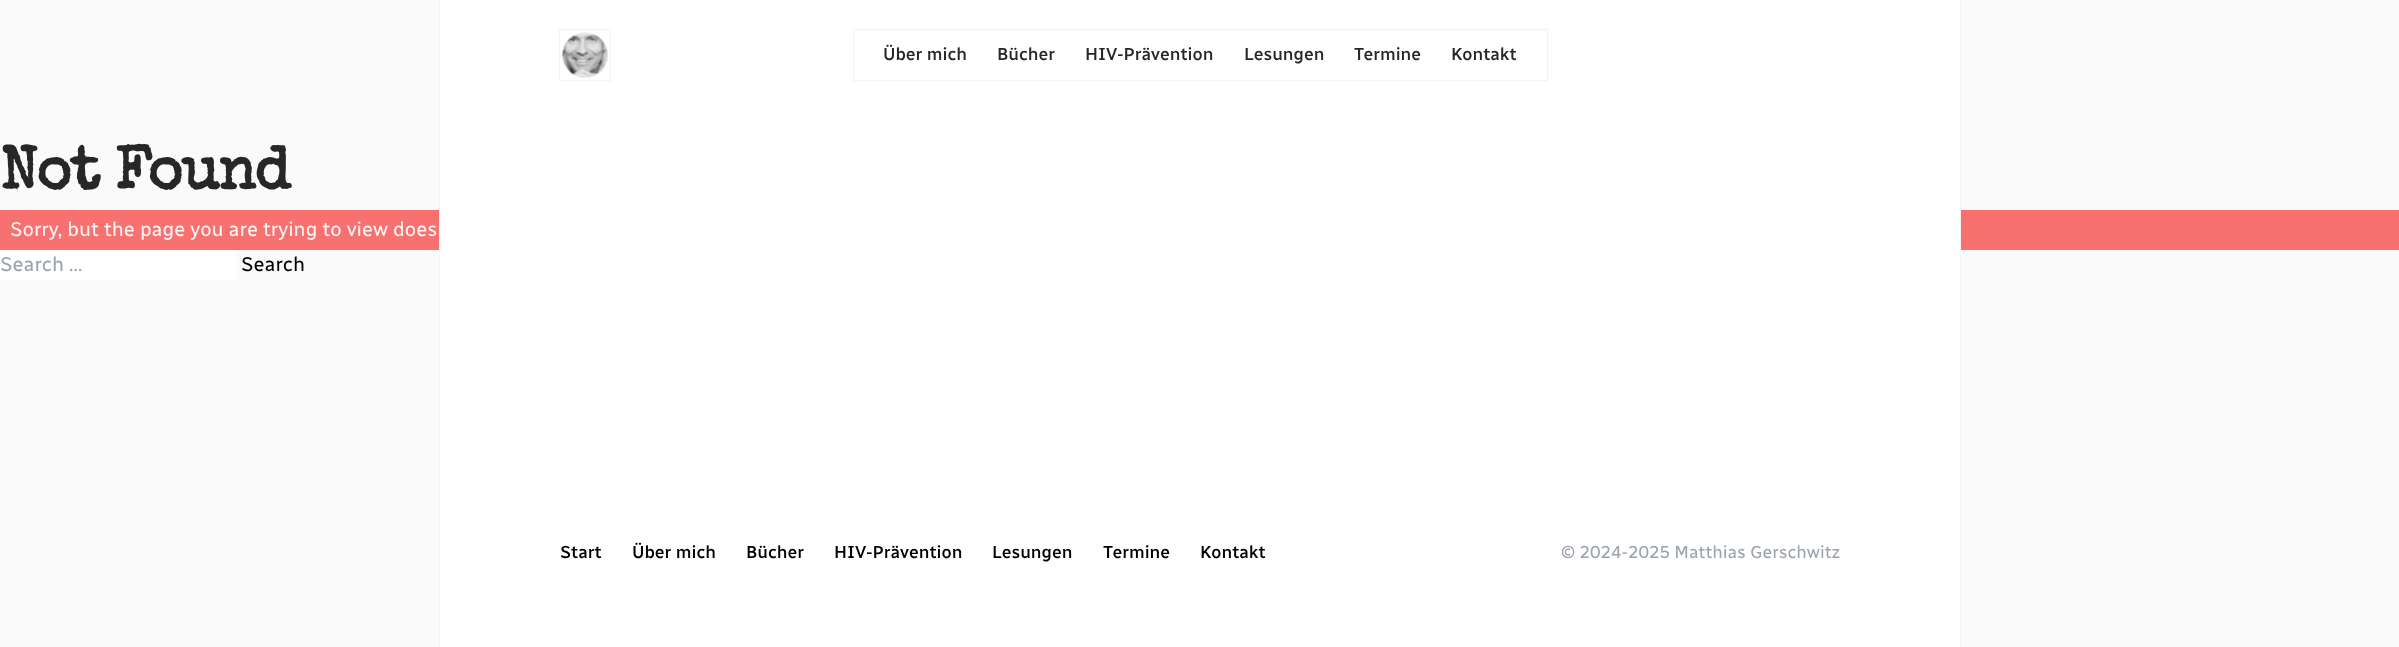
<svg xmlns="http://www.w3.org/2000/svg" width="2399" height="647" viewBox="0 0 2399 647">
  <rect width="100%" height="100%" fill="#fafafa"/>
  <rect x="0" y="210" width="2399" height="40" fill="#f87171"/>
  <rect x="439.5" y="-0.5" width="1521" height="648" fill="none" stroke="#f4f4f5"/>
  <rect x="440" y="0" width="1520" height="647" fill="#ffffff"/>
  <rect x="559.5" y="29.5" width="51" height="51" fill="none" stroke="#18181b" stroke-opacity="0.05"/>
  <circle cx="585" cy="55" r="25" fill="#ffffff" fill-opacity="0.9"/>
  <circle cx="585.5" cy="55.5" r="22.5" fill="#f4f4f5"/>
  <image x="562" y="32" width="46" height="46" href="img1.png"/>
  <rect x="853.5" y="29.5" width="694" height="51" fill="none" stroke="#18181b" stroke-opacity="0.05"/>
  <rect x="854" y="30" width="692" height="50" rx="25" fill="#ffffff" fill-opacity="0.9"/>
  <text x="883" y="60" font-family="Radio Canada" font-size="17.5" font-weight="500" fill="#27272a">Über mich</text>
  <text x="997" y="60" font-family="Radio Canada" font-size="17.5" font-weight="500" fill="#27272a">Bücher</text>
  <text x="1085" y="60" font-family="Radio Canada" font-size="17.5" font-weight="500" fill="#27272a">HIV-Prävention</text>
  <text x="1244" y="60" font-family="Radio Canada" font-size="17.5" font-weight="500" fill="#27272a">Lesungen</text>
  <text x="1354" y="60" font-family="Radio Canada" font-size="17.5" font-weight="500" fill="#27272a">Termine</text>
  <text x="1451" y="60" font-family="Radio Canada" font-size="17.5" font-weight="500" fill="#27272a">Kontakt</text>
  <text x="0" y="188" font-family="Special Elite" font-size="60" font-weight="bold" letter-spacing="-1.5" fill="#27272a">Not Found</text>
  <text x="10" y="236" font-family="Radio Canada" font-size="20" fill="#fef2f2">Sorry, but the page you are trying to view does</text>
  <rect x="0" y="250" width="236" height="30" fill="#ffffff"/>
  <text x="0" y="271" font-family="Radio Canada" font-size="20" fill="#9ca3af">Search …</text>
  <text x="241" y="271" font-family="Radio Canada" font-size="20" fill="#000000">Search</text>
  <text x="560" y="558" font-family="Radio Canada" font-size="17.5" font-weight="500" fill="#000000">Start</text>
  <text x="632" y="558" font-family="Radio Canada" font-size="17.5" font-weight="500" fill="#000000">Über mich</text>
  <text x="746" y="558" font-family="Radio Canada" font-size="17.5" font-weight="500" fill="#000000">Bücher</text>
  <text x="834" y="558" font-family="Radio Canada" font-size="17.5" font-weight="500" fill="#000000">HIV-Prävention</text>
  <text x="992" y="558" font-family="Radio Canada" font-size="17.5" font-weight="500" fill="#000000">Lesungen</text>
  <text x="1103" y="558" font-family="Radio Canada" font-size="17.5" font-weight="500" fill="#000000">Termine</text>
  <text x="1200" y="558" font-family="Radio Canada" font-size="17.5" font-weight="500" fill="#000000">Kontakt</text>
  <text x="1561" y="558" font-family="Radio Canada" font-size="17.5" fill="#9ca3af">© 2024-2025 Matthias Gerschwitz</text>
</svg>
